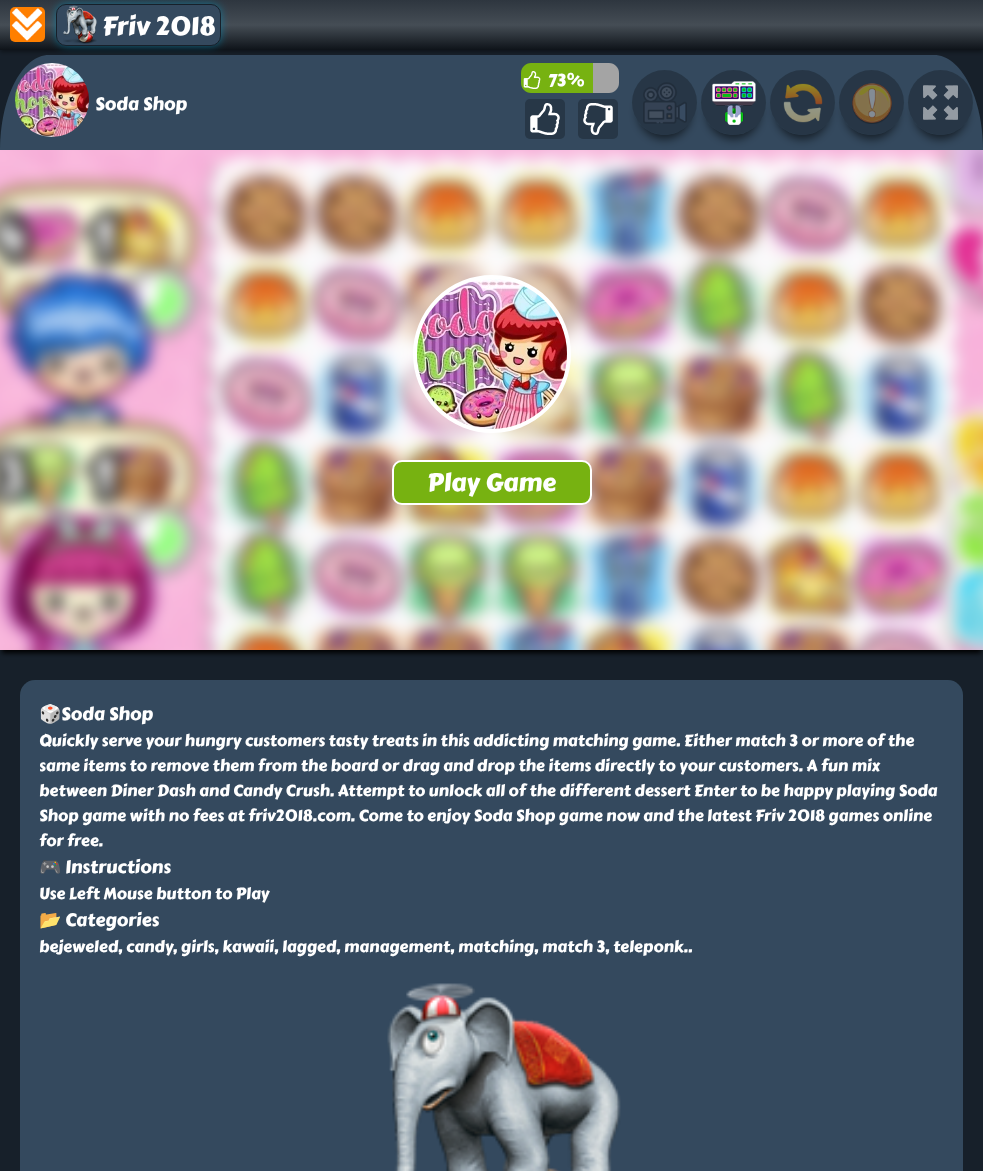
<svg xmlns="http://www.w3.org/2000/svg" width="983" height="1171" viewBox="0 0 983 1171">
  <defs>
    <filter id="blur1" x="-50%" y="-200%" width="200%" height="500%"><feGaussianBlur stdDeviation="2"/></filter>
    <linearGradient id="g1" gradientUnits="userSpaceOnUse" x1="492" y1="0" x2="492" y2="50"><stop offset="0" stop-color="#2e363f"/><stop offset="0.5" stop-color="#454d55"/><stop offset="1" stop-color="#0e1319"/></linearGradient>
    <filter id="blur2" x="-50%" y="-200%" width="200%" height="500%"><feGaussianBlur stdDeviation="4"/></filter>
    <clipPath id="clip1"><path d="M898 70H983V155H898ZM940.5 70C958.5 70 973 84.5 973 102.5C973 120.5 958.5 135 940.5 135C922.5 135 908 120.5 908 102.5C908 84.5 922.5 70 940.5 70Z" clip-rule="evenodd"/></clipPath>
    <filter id="blur3" x="-50%" y="-200%" width="200%" height="500%"><feGaussianBlur stdDeviation="5"/></filter>
    <clipPath id="clip2"><path d="M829 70H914V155H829ZM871.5 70C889.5 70 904 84.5 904 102.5C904 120.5 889.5 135 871.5 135C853.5 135 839 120.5 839 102.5C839 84.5 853.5 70 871.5 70Z" clip-rule="evenodd"/></clipPath>
    <clipPath id="clip3"><path d="M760 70H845V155H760ZM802.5 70C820.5 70 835 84.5 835 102.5C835 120.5 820.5 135 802.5 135C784.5 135 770 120.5 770 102.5C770 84.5 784.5 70 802.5 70Z" clip-rule="evenodd"/></clipPath>
    <clipPath id="clip4"><path d="M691 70H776V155H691ZM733.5 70C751.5 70 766 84.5 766 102.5C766 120.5 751.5 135 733.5 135C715.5 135 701 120.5 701 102.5C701 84.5 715.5 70 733.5 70Z" clip-rule="evenodd"/></clipPath>
    <clipPath id="clip5"><path d="M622 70H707V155H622ZM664.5 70C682.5 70 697 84.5 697 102.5C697 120.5 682.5 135 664.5 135C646.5 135 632 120.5 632 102.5C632 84.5 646.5 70 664.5 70Z" clip-rule="evenodd"/></clipPath>
    <filter id="blur4" x="-50%" y="-200%" width="200%" height="500%"><feGaussianBlur stdDeviation="2.5"/></filter>
    <filter id="blur5" x="-50%" y="-200%" width="200%" height="500%"><feGaussianBlur stdDeviation="7.5"/></filter>
  </defs>
  <rect width="100%" height="100%" fill="#17202a"/>
  <rect x="0" y="2" width="983" height="50" fill="#000000" fill-opacity="0.4" filter="url(#blur1)"/>
  <rect x="0" y="0" width="983" height="50" fill="url(#g1)"/>
  <image x="10" y="7" width="35" height="35" href="img1.png"/>
  <rect x="56" y="4" width="165" height="42" rx="10" fill="#0092bf" fill-opacity="0.6" filter="url(#blur2)"/>
  <rect x="56.5" y="4.5" width="164" height="41" rx="9.5" fill="#34495e" stroke="#17202a"/>
  <image x="63" y="5" width="34" height="39" href="img2.png"/>
  <text x="102" y="35" font-family="Carter One" font-size="26" fill="#ffffff">Friv 2018</text>
  <path d="M49 55H934C961 55 983 98 983 150H0C0 98 22 55 49 55Z" fill="#34495e"/>
  <image x="15" y="63" width="74" height="74" href="img3.png"/>
  <path d="M531 63H593V93H531C525.5 93 521 88.5 521 83V73C521 67.5 525.5 63 531 63Z" fill="#77b211"/>
  <image x="523" y="71" width="18" height="18" href="img4.png"/>
  <text x="548" y="86" font-family="Carter One" font-size="17" fill="#ffffff">73%</text>
  <path d="M593 63H609C614.5 63 619 67.5 619 73V83C619 88.5 614.5 93 609 93H593Z" fill="#a4a4a4"/>
  <rect x="525" y="99" width="40" height="40" rx="5" fill="#273747"/>
  <image x="530" y="103" width="30" height="32" href="img5.png"/>
  <rect x="578" y="99" width="40" height="40" rx="5" fill="#273747"/>
  <image x="583" y="103" width="30" height="32" href="img6.png"/>
  <g clip-path="url(#clip1)">
    <rect x="914" y="86" width="53" height="53" rx="26.5" fill="#000000" fill-opacity="0.6" filter="url(#blur3)"/>
  </g>
  <circle cx="940.5" cy="102.5" r="32.5" fill="#000000" fill-opacity="0.25"/>
  <g clip-path="url(#clip2)">
    <rect x="845" y="86" width="53" height="53" rx="26.5" fill="#000000" fill-opacity="0.6" filter="url(#blur3)"/>
  </g>
  <circle cx="871.5" cy="102.5" r="32.5" fill="#000000" fill-opacity="0.25"/>
  <g clip-path="url(#clip3)">
    <rect x="776" y="86" width="53" height="53" rx="26.5" fill="#000000" fill-opacity="0.6" filter="url(#blur3)"/>
  </g>
  <circle cx="802.5" cy="102.5" r="32.5" fill="#000000" fill-opacity="0.25"/>
  <g clip-path="url(#clip4)">
    <rect x="707" y="86" width="53" height="53" rx="26.5" fill="#000000" fill-opacity="0.6" filter="url(#blur3)"/>
  </g>
  <circle cx="733.5" cy="102.5" r="32.5" fill="#000000" fill-opacity="0.25"/>
  <g clip-path="url(#clip5)">
    <rect x="638" y="86" width="53" height="53" rx="26.5" fill="#000000" fill-opacity="0.6" filter="url(#blur3)"/>
  </g>
  <circle cx="664.5" cy="102.5" r="32.5" fill="#000000" fill-opacity="0.25"/>
  <image x="643" y="82" width="44" height="42" href="img7.png"/>
  <image x="712" y="81" width="44" height="44" href="img8.png"/>
  <image x="783" y="83" width="40" height="40" href="img9.png"/>
  <image x="852" y="83" width="40" height="41" href="img10.png"/>
  <image x="923" y="85" width="35" height="35" href="img11.png"/>
  <text x="95" y="110" font-family="Carter One" font-size="18" fill="#ffffff">Soda Shop</text>
  <rect x="2" y="157" width="979" height="496" fill="#000000" filter="url(#blur4)"/>
  <image x="0" y="150" width="983" height="500" href="img12.png"/>
  <rect x="398" y="260" width="188" height="188" rx="94" fill="#ffffff" fill-opacity="0.55" filter="url(#blur5)"/>
  <circle cx="492" cy="354" r="77" fill="#ffffff" stroke="#ffffff" stroke-width="4"/>
  <image x="417" y="279" width="150" height="150" href="img13.png"/>
  <rect x="393" y="461" width="198" height="43" rx="9" fill="#77b211" stroke="#ffffff" stroke-width="2"/>
  <text x="427" y="491" font-family="Carter One" font-size="25" fill="#ffffff">Play Game</text>
  <rect x="20" y="680" width="943" height="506" rx="15" fill="#34495e"/>
  <text x="39" y="720" font-family="Noto Color Emoji" font-size="18" fill="#ffffff">🎲</text>
  <text x="61" y="720" font-family="Carter One" font-size="18" fill="#ffffff">Soda Shop</text>
  <text x="39" y="746" font-family="Carter One" font-size="16" fill="#ffffff">Quickly serve your hungry customers tasty treats in this addicting matching game. Either match 3 or more of the</text>
  <text x="39" y="771" font-family="Carter One" font-size="16" fill="#ffffff">same items to remove them from the board or drag and drop the items directly to your customers. A fun mix</text>
  <text x="39" y="796" font-family="Carter One" font-size="16" fill="#ffffff">between Diner Dash and Candy Crush. Attempt to unlock all of the different dessert Enter to be happy playing Soda</text>
  <text x="39" y="821" font-family="Carter One" font-size="16" fill="#ffffff">Shop game with no fees at friv2018.com. Come to enjoy Soda Shop game now and the latest Friv 2018 games online</text>
  <text x="39" y="846" font-family="Carter One" font-size="16" fill="#ffffff">for free.</text>
  <text x="39" y="873" font-family="Noto Color Emoji" font-size="18" fill="#ffffff">🎮</text>
  <text x="65" y="873" font-family="Carter One" font-size="18" fill="#ffffff">Instructions</text>
  <text x="39" y="899" font-family="Carter One" font-size="16" fill="#ffffff">Use Left Mouse button to Play</text>
  <text x="39" y="926" font-family="Noto Color Emoji" font-size="18" fill="#ffffff">📂</text>
  <text x="65" y="926" font-family="Carter One" font-size="18" fill="#ffffff">Categories</text>
  <text x="39" y="952" font-family="Carter One" font-size="16" fill="#ffffff">bejeweled, candy, girls, kawaii, lagged, management, matching, match 3, teleponk..</text>
  <image x="387" y="983" width="234" height="188" href="img14.png"/>
</svg>
